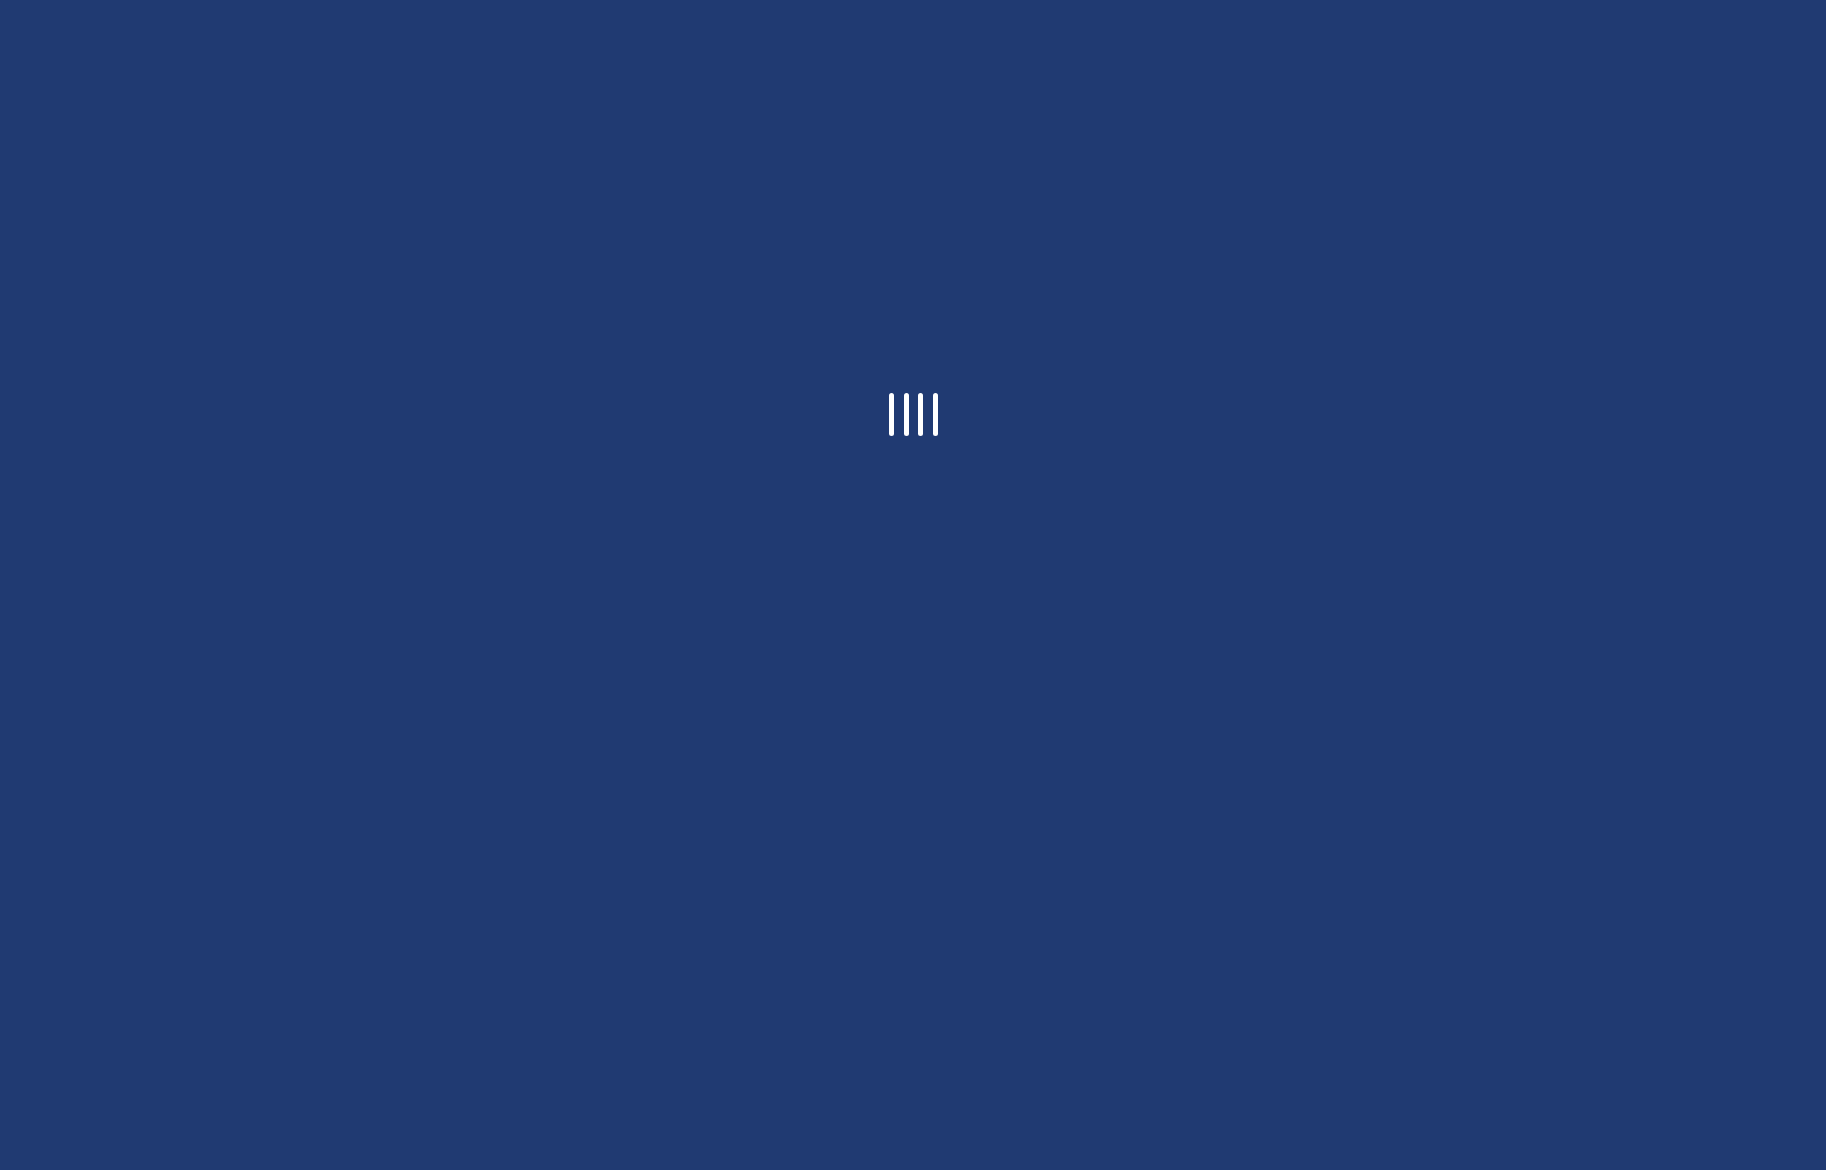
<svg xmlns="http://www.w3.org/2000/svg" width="1826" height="1170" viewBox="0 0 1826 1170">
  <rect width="100%" height="100%" fill="#203a72"/>
  <rect x="889" y="393" width="5" height="43" rx="2.5" fill="#ffffff"/>
  <rect x="904" y="393" width="5" height="43" rx="2.5" fill="#ffffff"/>
  <rect x="918" y="393" width="5" height="43" rx="2.5" fill="#ffffff"/>
  <rect x="933" y="393" width="5" height="43" rx="2.5" fill="#ffffff"/>
</svg>
